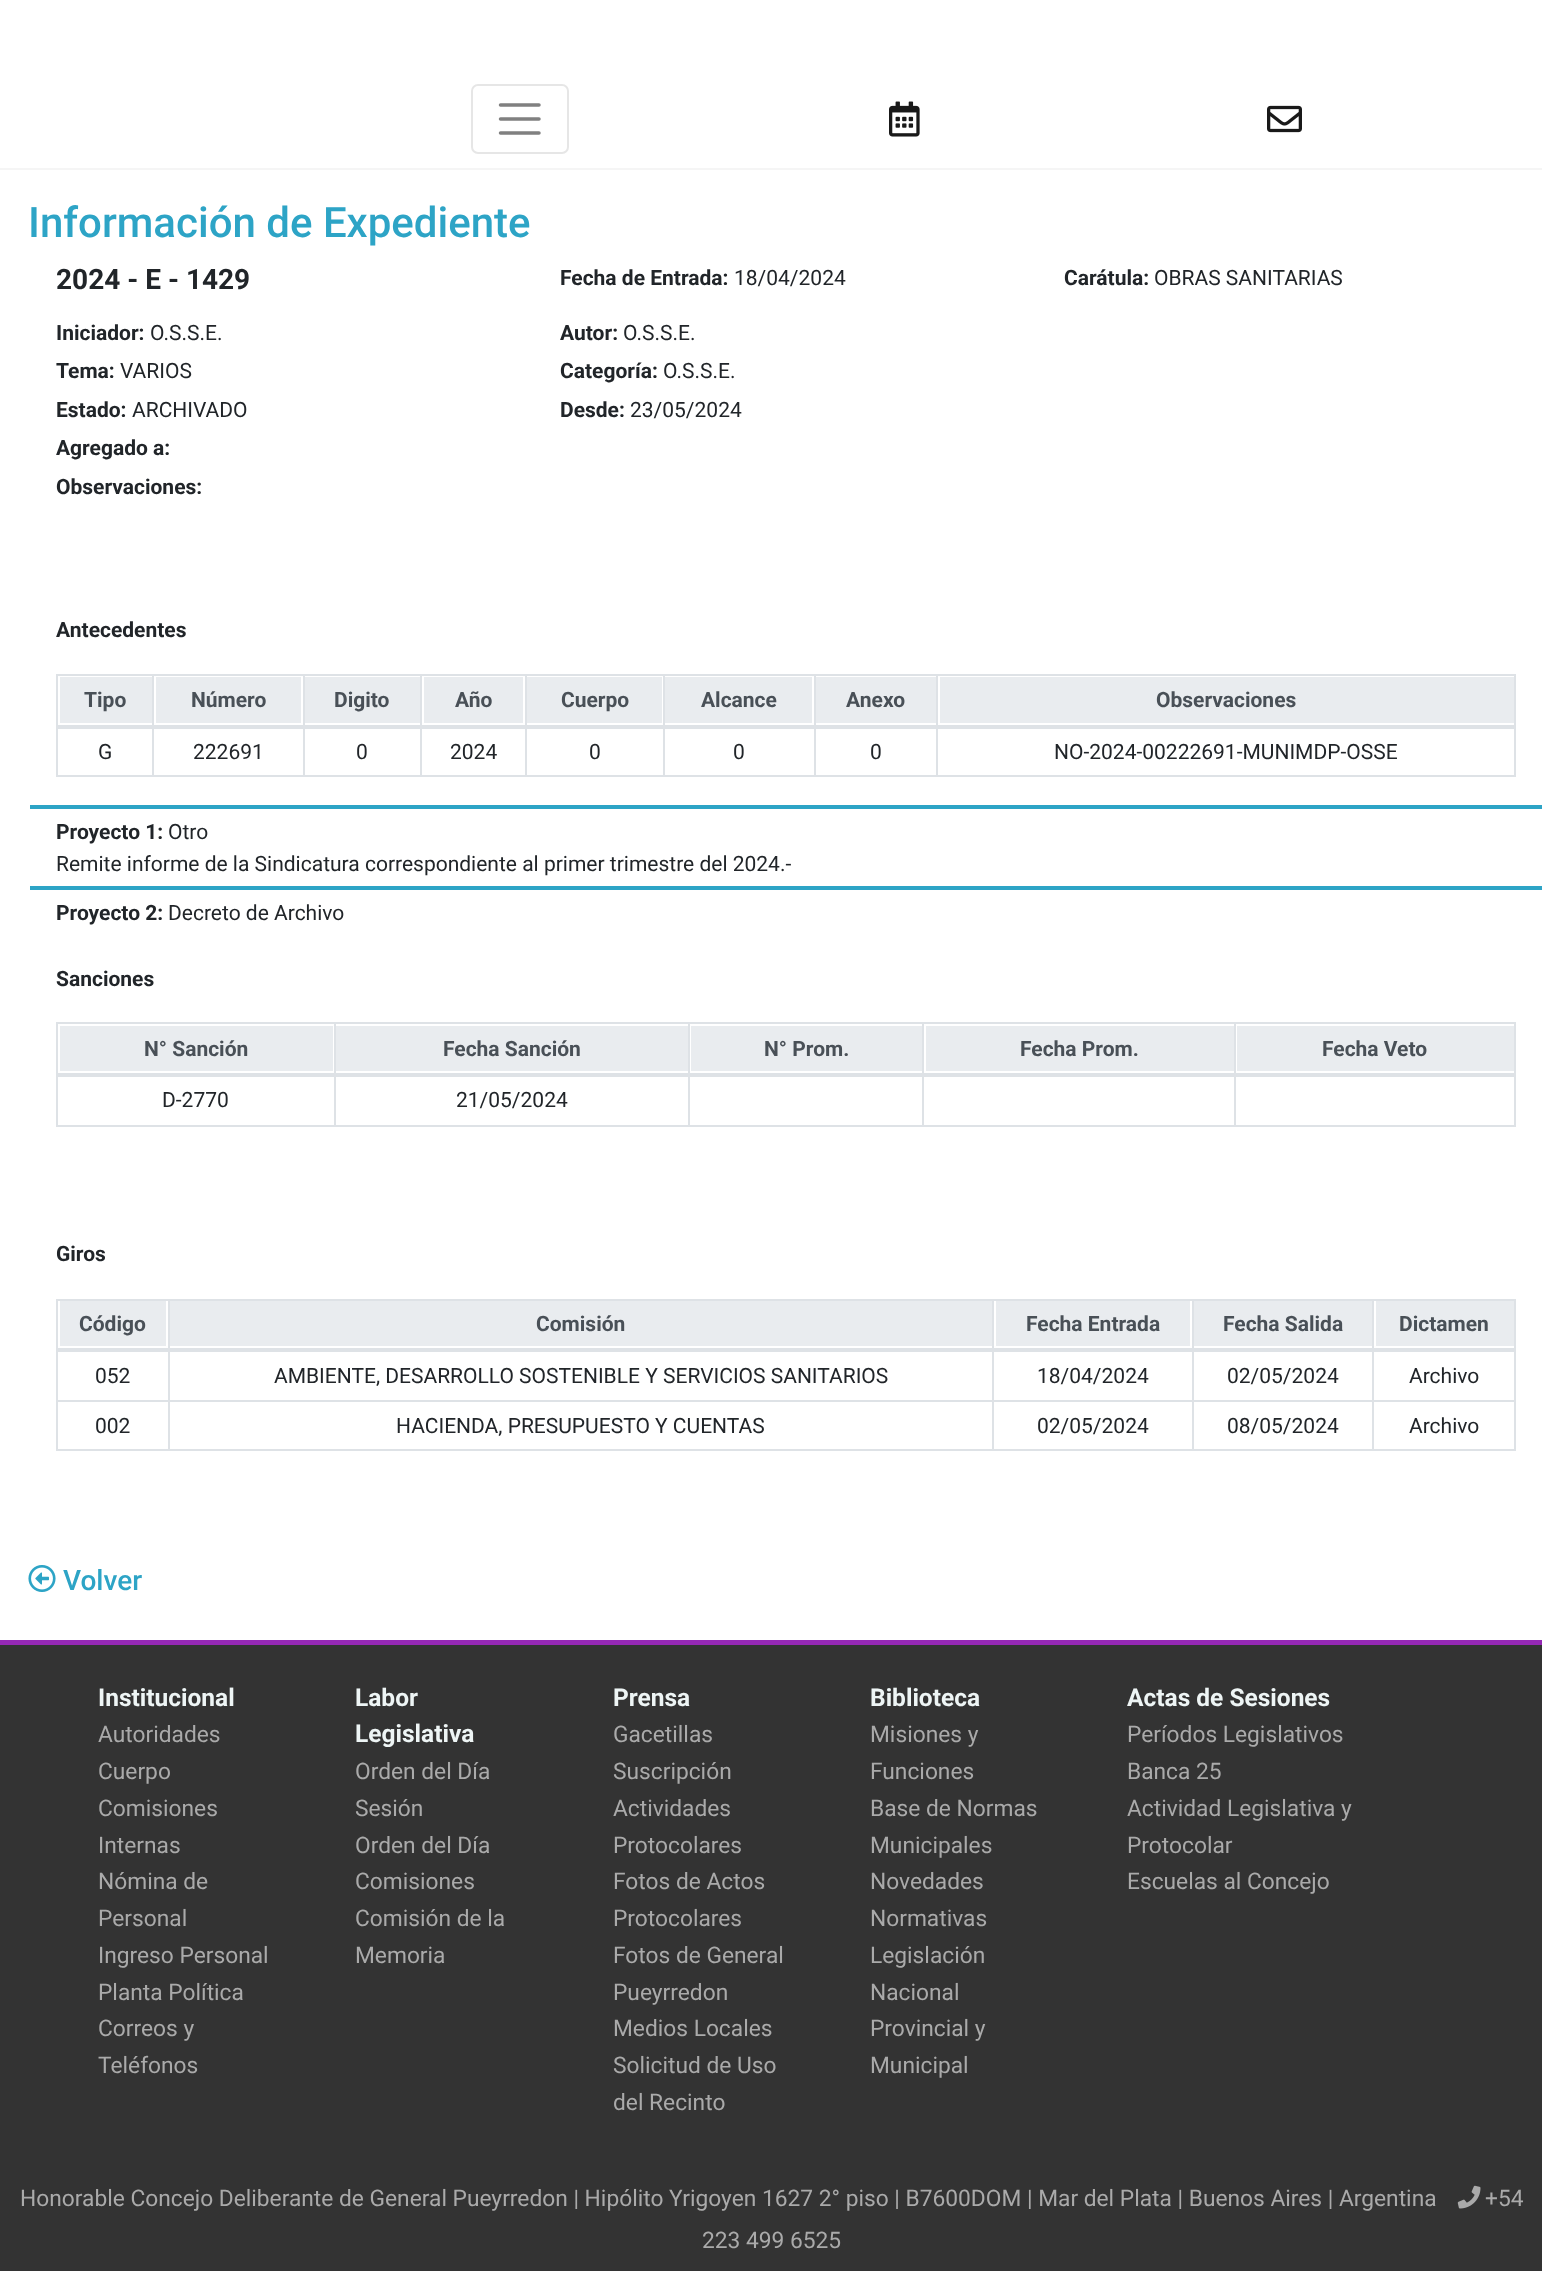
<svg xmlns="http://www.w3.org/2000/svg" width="1542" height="2271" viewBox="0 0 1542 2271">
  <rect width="100%" height="100%" fill="#ffffff"/>
  <rect x="472" y="85" width="96" height="68" rx="6" fill="none" stroke="#e6e6e6" stroke-width="2"/>
  <path d="M500.5 105H539M500.5 119H539M500.5 133H539" fill="none" stroke="#808080" stroke-width="3.5" stroke-linecap="round"/>
  <image x="889" y="101" width="31" height="36" href="img1.png"/>
  <image x="1267" y="105" width="35" height="28" href="img2.png"/>
  <rect x="0" y="168" width="1542" height="2" fill="#f5f5f5"/>
  <text x="28" y="237" font-family="Roboto" font-size="42" font-weight="500" fill="#2da4c6">Información de Expediente</text>
  <text x="56" y="289" font-family="Roboto" font-size="28" font-weight="bold" fill="#212529">2024 - E - 1429</text>
  <text x="560" y="285" font-family="Roboto" font-size="21" font-weight="bold" fill="#212529">Fecha de Entrada:</text>
  <text x="734" y="285" font-family="Roboto" font-size="21" fill="#212529">18/04/2024</text>
  <text x="1064" y="285" font-family="Roboto" font-size="21" font-weight="bold" fill="#212529">Carátula:</text>
  <text x="1154" y="285" font-family="Roboto" font-size="21" fill="#212529">OBRAS SANITARIAS</text>
  <text x="56" y="340" font-family="Roboto" font-size="21" font-weight="bold" fill="#212529">Iniciador:</text>
  <text x="150" y="340" font-family="Roboto" font-size="21" fill="#212529">O.S.S.E.</text>
  <text x="560" y="340" font-family="Roboto" font-size="21" font-weight="bold" fill="#212529">Autor:</text>
  <text x="623" y="340" font-family="Roboto" font-size="21" fill="#212529">O.S.S.E.</text>
  <text x="56" y="378" font-family="Roboto" font-size="21" font-weight="bold" fill="#212529">Tema:</text>
  <text x="120" y="378" font-family="Roboto" font-size="21" fill="#212529">VARIOS</text>
  <text x="560" y="378" font-family="Roboto" font-size="21" font-weight="bold" fill="#212529">Categoría:</text>
  <text x="663" y="378" font-family="Roboto" font-size="21" fill="#212529">O.S.S.E.</text>
  <text x="56" y="417" font-family="Roboto" font-size="21" font-weight="bold" fill="#212529">Estado:</text>
  <text x="132" y="417" font-family="Roboto" font-size="21" fill="#212529">ARCHIVADO</text>
  <text x="560" y="417" font-family="Roboto" font-size="21" font-weight="bold" fill="#212529">Desde:</text>
  <text x="630" y="417" font-family="Roboto" font-size="21" fill="#212529">23/05/2024</text>
  <text x="56" y="455" font-family="Roboto" font-size="21" font-weight="bold" fill="#212529">Agregado a:</text>
  <text x="56" y="494" font-family="Roboto" font-size="21" font-weight="bold" fill="#212529">Observaciones:</text>
  <text x="56" y="637" font-family="Roboto" font-size="21" font-weight="bold" fill="#212529">Antecedentes</text>
  <rect x="60" y="677" width="92" height="46" fill="#e9ecef"/>
  <rect x="936" y="674" width="580" height="2" fill="#dee2e6"/>
  <rect x="1514" y="725" width="2" height="52" fill="#dee2e6"/>
  <rect x="936" y="775" width="580" height="2" fill="#dee2e6"/>
  <rect x="936" y="725" width="2" height="52" fill="#dee2e6"/>
  <rect x="936" y="674" width="2" height="52" fill="#dee2e6"/>
  <rect x="814" y="674" width="124" height="2" fill="#dee2e6"/>
  <rect x="814" y="775" width="124" height="2" fill="#dee2e6"/>
  <rect x="814" y="725" width="2" height="52" fill="#dee2e6"/>
  <rect x="814" y="674" width="2" height="52" fill="#dee2e6"/>
  <rect x="663" y="674" width="153" height="2" fill="#dee2e6"/>
  <rect x="663" y="775" width="153" height="2" fill="#dee2e6"/>
  <rect x="663" y="725" width="2" height="52" fill="#dee2e6"/>
  <rect x="663" y="674" width="2" height="52" fill="#dee2e6"/>
  <rect x="525" y="674" width="140" height="2" fill="#dee2e6"/>
  <rect x="525" y="775" width="140" height="2" fill="#dee2e6"/>
  <rect x="525" y="725" width="2" height="52" fill="#dee2e6"/>
  <rect x="525" y="674" width="2" height="52" fill="#dee2e6"/>
  <rect x="420" y="674" width="107" height="2" fill="#dee2e6"/>
  <rect x="420" y="775" width="107" height="2" fill="#dee2e6"/>
  <rect x="420" y="725" width="2" height="52" fill="#dee2e6"/>
  <rect x="420" y="674" width="2" height="52" fill="#dee2e6"/>
  <rect x="303" y="674" width="119" height="2" fill="#dee2e6"/>
  <rect x="303" y="775" width="119" height="2" fill="#dee2e6"/>
  <rect x="303" y="725" width="2" height="52" fill="#dee2e6"/>
  <rect x="303" y="674" width="2" height="52" fill="#dee2e6"/>
  <rect x="152" y="674" width="153" height="2" fill="#dee2e6"/>
  <rect x="152" y="775" width="153" height="2" fill="#dee2e6"/>
  <rect x="152" y="725" width="2" height="52" fill="#dee2e6"/>
  <rect x="152" y="674" width="2" height="52" fill="#dee2e6"/>
  <rect x="56" y="674" width="98" height="2" fill="#dee2e6"/>
  <rect x="56" y="775" width="98" height="2" fill="#dee2e6"/>
  <rect x="56" y="725" width="2" height="52" fill="#dee2e6"/>
  <rect x="56" y="674" width="2" height="52" fill="#dee2e6"/>
  <text x="84" y="707" font-family="Roboto" font-size="21" font-weight="bold" fill="#495057">Tipo</text>
  <rect x="156" y="677" width="145" height="46" fill="#e9ecef"/>
  <text x="191" y="707" font-family="Roboto" font-size="21" font-weight="bold" fill="#495057">Número</text>
  <rect x="305" y="677" width="115" height="46" fill="#e9ecef"/>
  <text x="334" y="707" font-family="Roboto" font-size="21" font-weight="bold" fill="#495057">Digito</text>
  <rect x="424" y="677" width="99" height="46" fill="#e9ecef"/>
  <text x="455" y="707" font-family="Roboto" font-size="21" font-weight="bold" fill="#495057">Año</text>
  <rect x="527" y="677" width="135" height="46" fill="#e9ecef"/>
  <text x="561" y="707" font-family="Roboto" font-size="21" font-weight="bold" fill="#495057">Cuerpo</text>
  <rect x="665" y="677" width="147" height="46" fill="#e9ecef"/>
  <text x="701" y="707" font-family="Roboto" font-size="21" font-weight="bold" fill="#495057">Alcance</text>
  <rect x="816" y="677" width="120" height="46" fill="#e9ecef"/>
  <text x="846" y="707" font-family="Roboto" font-size="21" font-weight="bold" fill="#495057">Anexo</text>
  <rect x="940" y="677" width="574" height="46" fill="#e9ecef"/>
  <rect x="1514" y="674" width="2" height="52" fill="#dee2e6"/>
  <rect x="56" y="725" width="1460" height="4" fill="#dee2e6"/>
  <text x="1156" y="707" font-family="Roboto" font-size="21" font-weight="bold" fill="#495057">Observaciones</text>
  <text x="98" y="759" font-family="Roboto" font-size="21" fill="#212529">G</text>
  <text x="193" y="759" font-family="Roboto" font-size="21" fill="#212529">222691</text>
  <text x="356" y="759" font-family="Roboto" font-size="21" fill="#212529">0</text>
  <text x="450" y="759" font-family="Roboto" font-size="21" fill="#212529">2024</text>
  <text x="589" y="759" font-family="Roboto" font-size="21" fill="#212529">0</text>
  <text x="733" y="759" font-family="Roboto" font-size="21" fill="#212529">0</text>
  <text x="870" y="759" font-family="Roboto" font-size="21" fill="#212529">0</text>
  <text x="1054" y="759" font-family="Roboto" font-size="21" fill="#212529">NO-2024-00222691-MUNIMDP-OSSE</text>
  <rect x="30" y="805" width="1512" height="4" fill="#2da4c6"/>
  <text x="56" y="839" font-family="Roboto" font-size="21" font-weight="bold" fill="#212529">Proyecto 1:</text>
  <text x="168" y="839" font-family="Roboto" font-size="21" fill="#212529">Otro</text>
  <text x="56" y="871" font-family="Roboto" font-size="21" fill="#212529">Remite informe de la Sindicatura correspondiente al primer trimestre del 2024.-</text>
  <rect x="30" y="886" width="1512" height="4" fill="#2da4c6"/>
  <text x="56" y="920" font-family="Roboto" font-size="21" font-weight="bold" fill="#212529">Proyecto 2:</text>
  <text x="168" y="920" font-family="Roboto" font-size="21" fill="#212529">Decreto de Archivo</text>
  <text x="56" y="986" font-family="Roboto" font-size="21" font-weight="bold" fill="#212529">Sanciones</text>
  <rect x="60" y="1026" width="273" height="45" fill="#e9ecef"/>
  <rect x="1234" y="1022" width="282" height="2" fill="#dee2e6"/>
  <rect x="1514" y="1075" width="2" height="52" fill="#dee2e6"/>
  <rect x="1234" y="1125" width="282" height="2" fill="#dee2e6"/>
  <rect x="1234" y="1075" width="2" height="52" fill="#dee2e6"/>
  <rect x="1234" y="1022" width="2" height="54" fill="#dee2e6"/>
  <rect x="922" y="1022" width="314" height="2" fill="#dee2e6"/>
  <rect x="922" y="1125" width="314" height="2" fill="#dee2e6"/>
  <rect x="922" y="1075" width="2" height="52" fill="#dee2e6"/>
  <rect x="922" y="1022" width="2" height="54" fill="#dee2e6"/>
  <rect x="688" y="1022" width="236" height="2" fill="#dee2e6"/>
  <rect x="688" y="1125" width="236" height="2" fill="#dee2e6"/>
  <rect x="688" y="1075" width="2" height="52" fill="#dee2e6"/>
  <rect x="688" y="1022" width="2" height="54" fill="#dee2e6"/>
  <rect x="334" y="1022" width="356" height="2" fill="#dee2e6"/>
  <rect x="334" y="1125" width="356" height="2" fill="#dee2e6"/>
  <rect x="334" y="1075" width="2" height="52" fill="#dee2e6"/>
  <rect x="334" y="1022" width="2" height="54" fill="#dee2e6"/>
  <rect x="56" y="1022" width="280" height="2" fill="#dee2e6"/>
  <rect x="56" y="1125" width="280" height="2" fill="#dee2e6"/>
  <rect x="56" y="1075" width="2" height="52" fill="#dee2e6"/>
  <rect x="56" y="1022" width="2" height="54" fill="#dee2e6"/>
  <text x="144" y="1056" font-family="Roboto" font-size="21" font-weight="bold" fill="#495057">N° Sanción</text>
  <rect x="336" y="1026" width="352" height="45" fill="#e9ecef"/>
  <text x="443" y="1056" font-family="Roboto" font-size="21" font-weight="bold" fill="#495057">Fecha Sanción</text>
  <rect x="691" y="1026" width="231" height="45" fill="#e9ecef"/>
  <text x="764" y="1056" font-family="Roboto" font-size="21" font-weight="bold" fill="#495057">N° Prom.</text>
  <rect x="926" y="1026" width="308" height="45" fill="#e9ecef"/>
  <text x="1020" y="1056" font-family="Roboto" font-size="21" font-weight="bold" fill="#495057">Fecha Prom.</text>
  <rect x="1237" y="1026" width="277" height="45" fill="#e9ecef"/>
  <rect x="1514" y="1022" width="2" height="54" fill="#dee2e6"/>
  <rect x="56" y="1073" width="1460" height="4" fill="#dee2e6"/>
  <text x="1322" y="1056" font-family="Roboto" font-size="21" font-weight="bold" fill="#495057">Fecha Veto</text>
  <text x="162" y="1107" font-family="Roboto" font-size="21" fill="#212529">D-2770</text>
  <text x="456" y="1107" font-family="Roboto" font-size="21" fill="#212529">21/05/2024</text>
  <text x="56" y="1261" font-family="Roboto" font-size="21" font-weight="bold" fill="#212529">Giros</text>
  <rect x="60" y="1301" width="106" height="45" fill="#e9ecef"/>
  <rect x="1372" y="1299" width="144" height="2" fill="#dee2e6"/>
  <rect x="1372" y="1400" width="144" height="2" fill="#dee2e6"/>
  <rect x="1514" y="1349" width="2" height="102" fill="#dee2e6"/>
  <rect x="1372" y="1449" width="144" height="2" fill="#dee2e6"/>
  <rect x="1372" y="1400" width="2" height="51" fill="#dee2e6"/>
  <rect x="1192" y="1400" width="182" height="2" fill="#dee2e6"/>
  <rect x="1372" y="1349" width="2" height="53" fill="#dee2e6"/>
  <rect x="1372" y="1299" width="2" height="52" fill="#dee2e6"/>
  <rect x="1192" y="1299" width="182" height="2" fill="#dee2e6"/>
  <rect x="1192" y="1449" width="182" height="2" fill="#dee2e6"/>
  <rect x="1192" y="1400" width="2" height="51" fill="#dee2e6"/>
  <rect x="992" y="1400" width="202" height="2" fill="#dee2e6"/>
  <rect x="1192" y="1349" width="2" height="53" fill="#dee2e6"/>
  <rect x="1192" y="1299" width="2" height="52" fill="#dee2e6"/>
  <rect x="992" y="1299" width="202" height="2" fill="#dee2e6"/>
  <rect x="992" y="1449" width="202" height="2" fill="#dee2e6"/>
  <rect x="992" y="1400" width="2" height="51" fill="#dee2e6"/>
  <rect x="168" y="1400" width="826" height="2" fill="#dee2e6"/>
  <rect x="992" y="1349" width="2" height="53" fill="#dee2e6"/>
  <rect x="992" y="1299" width="2" height="52" fill="#dee2e6"/>
  <rect x="168" y="1299" width="826" height="2" fill="#dee2e6"/>
  <rect x="168" y="1449" width="826" height="2" fill="#dee2e6"/>
  <rect x="168" y="1400" width="2" height="51" fill="#dee2e6"/>
  <rect x="56" y="1400" width="114" height="2" fill="#dee2e6"/>
  <rect x="168" y="1349" width="2" height="53" fill="#dee2e6"/>
  <rect x="168" y="1299" width="2" height="52" fill="#dee2e6"/>
  <rect x="56" y="1299" width="114" height="2" fill="#dee2e6"/>
  <rect x="56" y="1449" width="114" height="2" fill="#dee2e6"/>
  <rect x="56" y="1349" width="2" height="102" fill="#dee2e6"/>
  <rect x="56" y="1299" width="2" height="52" fill="#dee2e6"/>
  <text x="79" y="1331" font-family="Roboto" font-size="21" font-weight="bold" fill="#495057">Código</text>
  <rect x="170" y="1301" width="822" height="45" fill="#e9ecef"/>
  <text x="536" y="1331" font-family="Roboto" font-size="21" font-weight="bold" fill="#495057">Comisión</text>
  <rect x="996" y="1301" width="194" height="45" fill="#e9ecef"/>
  <text x="1026" y="1331" font-family="Roboto" font-size="21" font-weight="bold" fill="#495057">Fecha Entrada</text>
  <rect x="1194" y="1301" width="178" height="45" fill="#e9ecef"/>
  <text x="1223" y="1331" font-family="Roboto" font-size="21" font-weight="bold" fill="#495057">Fecha Salida</text>
  <rect x="1376" y="1301" width="138" height="45" fill="#e9ecef"/>
  <rect x="1514" y="1299" width="2" height="52" fill="#dee2e6"/>
  <rect x="56" y="1348" width="1460" height="4" fill="#dee2e6"/>
  <text x="1399" y="1331" font-family="Roboto" font-size="21" font-weight="bold" fill="#495057">Dictamen</text>
  <text x="95" y="1383" font-family="Roboto" font-size="21" fill="#212529">052</text>
  <text x="274" y="1383" font-family="Roboto" font-size="21" fill="#212529">AMBIENTE, DESARROLLO SOSTENIBLE Y SERVICIOS SANITARIOS</text>
  <text x="1037" y="1383" font-family="Roboto" font-size="21" fill="#212529">18/04/2024</text>
  <text x="1227" y="1383" font-family="Roboto" font-size="21" fill="#212529">02/05/2024</text>
  <text x="1409" y="1383" font-family="Roboto" font-size="21" fill="#212529">Archivo</text>
  <text x="95" y="1433" font-family="Roboto" font-size="21" fill="#212529">002</text>
  <text x="396" y="1433" font-family="Roboto" font-size="21" fill="#212529">HACIENDA, PRESUPUESTO Y CUENTAS</text>
  <text x="1037" y="1433" font-family="Roboto" font-size="21" fill="#212529">02/05/2024</text>
  <text x="1227" y="1433" font-family="Roboto" font-size="21" fill="#212529">08/05/2024</text>
  <text x="1409" y="1433" font-family="Roboto" font-size="21" fill="#212529">Archivo</text>
  <image x="28" y="1565" width="28" height="27" href="img3.png"/>
  <text x="63" y="1590" font-family="Roboto" font-size="28" font-weight="500" fill="#2da4c6">Volver</text>
  <rect x="0" y="1645" width="1542" height="626" fill="#333333"/>
  <rect x="0" y="1640" width="1542" height="5" fill="#9528b5"/>
  <text x="98" y="1706" font-family="Roboto" font-size="24.5" font-weight="bold" fill="#eef5f5">Institucional</text>
  <text x="98" y="1742" font-family="Roboto" font-size="22.75" fill="#aaaaaa">Autoridades</text>
  <text x="98" y="1779" font-family="Roboto" font-size="22.75" fill="#aaaaaa">Cuerpo</text>
  <text x="98" y="1816" font-family="Roboto" font-size="22.75" fill="#aaaaaa">Comisiones</text>
  <text x="98" y="1853" font-family="Roboto" font-size="22.75" fill="#aaaaaa">Internas</text>
  <text x="98" y="1889" font-family="Roboto" font-size="22.75" fill="#aaaaaa">Nómina de</text>
  <text x="98" y="1926" font-family="Roboto" font-size="22.75" fill="#aaaaaa">Personal</text>
  <text x="98" y="1963" font-family="Roboto" font-size="22.75" fill="#aaaaaa">Ingreso Personal</text>
  <text x="98" y="2000" font-family="Roboto" font-size="22.75" fill="#aaaaaa">Planta Política</text>
  <text x="98" y="2036" font-family="Roboto" font-size="22.75" fill="#aaaaaa">Correos y</text>
  <text x="98" y="2073" font-family="Roboto" font-size="22.75" fill="#aaaaaa">Teléfonos</text>
  <text x="355" y="1706" font-family="Roboto" font-size="24.5" font-weight="bold" fill="#eef5f5">Labor</text>
  <text x="355" y="1742" font-family="Roboto" font-size="24.5" font-weight="bold" fill="#eef5f5">Legislativa</text>
  <text x="355" y="1779" font-family="Roboto" font-size="22.75" fill="#aaaaaa">Orden del Día</text>
  <text x="355" y="1816" font-family="Roboto" font-size="22.75" fill="#aaaaaa">Sesión</text>
  <text x="355" y="1853" font-family="Roboto" font-size="22.75" fill="#aaaaaa">Orden del Día</text>
  <text x="355" y="1889" font-family="Roboto" font-size="22.75" fill="#aaaaaa">Comisiones</text>
  <text x="355" y="1926" font-family="Roboto" font-size="22.75" fill="#aaaaaa">Comisión de la</text>
  <text x="355" y="1963" font-family="Roboto" font-size="22.75" fill="#aaaaaa">Memoria</text>
  <text x="613" y="1706" font-family="Roboto" font-size="24.5" font-weight="bold" fill="#eef5f5">Prensa</text>
  <text x="613" y="1742" font-family="Roboto" font-size="22.75" fill="#aaaaaa">Gacetillas</text>
  <text x="613" y="1779" font-family="Roboto" font-size="22.75" fill="#aaaaaa">Suscripción</text>
  <text x="613" y="1816" font-family="Roboto" font-size="22.75" fill="#aaaaaa">Actividades</text>
  <text x="613" y="1853" font-family="Roboto" font-size="22.75" fill="#aaaaaa">Protocolares</text>
  <text x="613" y="1889" font-family="Roboto" font-size="22.75" fill="#aaaaaa">Fotos de Actos</text>
  <text x="613" y="1926" font-family="Roboto" font-size="22.75" fill="#aaaaaa">Protocolares</text>
  <text x="613" y="1963" font-family="Roboto" font-size="22.75" fill="#aaaaaa">Fotos de General</text>
  <text x="613" y="2000" font-family="Roboto" font-size="22.75" fill="#aaaaaa">Pueyrredon</text>
  <text x="613" y="2036" font-family="Roboto" font-size="22.75" fill="#aaaaaa">Medios Locales</text>
  <text x="613" y="2073" font-family="Roboto" font-size="22.75" fill="#aaaaaa">Solicitud de Uso</text>
  <text x="613" y="2110" font-family="Roboto" font-size="22.75" fill="#aaaaaa">del Recinto</text>
  <text x="870" y="1706" font-family="Roboto" font-size="24.5" font-weight="bold" fill="#eef5f5">Biblioteca</text>
  <text x="870" y="1742" font-family="Roboto" font-size="22.75" fill="#aaaaaa">Misiones y</text>
  <text x="870" y="1779" font-family="Roboto" font-size="22.75" fill="#aaaaaa">Funciones</text>
  <text x="870" y="1816" font-family="Roboto" font-size="22.75" fill="#aaaaaa">Base de Normas</text>
  <text x="870" y="1853" font-family="Roboto" font-size="22.75" fill="#aaaaaa">Municipales</text>
  <text x="870" y="1889" font-family="Roboto" font-size="22.75" fill="#aaaaaa">Novedades</text>
  <text x="870" y="1926" font-family="Roboto" font-size="22.75" fill="#aaaaaa">Normativas</text>
  <text x="870" y="1963" font-family="Roboto" font-size="22.75" fill="#aaaaaa">Legislación</text>
  <text x="870" y="2000" font-family="Roboto" font-size="22.75" fill="#aaaaaa">Nacional</text>
  <text x="870" y="2036" font-family="Roboto" font-size="22.75" fill="#aaaaaa">Provincial y</text>
  <text x="870" y="2073" font-family="Roboto" font-size="22.75" fill="#aaaaaa">Municipal</text>
  <text x="1127" y="1706" font-family="Roboto" font-size="24.5" font-weight="bold" fill="#eef5f5">Actas de Sesiones</text>
  <text x="1127" y="1742" font-family="Roboto" font-size="22.75" fill="#aaaaaa">Períodos Legislativos</text>
  <text x="1127" y="1779" font-family="Roboto" font-size="22.75" fill="#aaaaaa">Banca 25</text>
  <text x="1127" y="1816" font-family="Roboto" font-size="22.75" fill="#aaaaaa">Actividad Legislativa y</text>
  <text x="1127" y="1853" font-family="Roboto" font-size="22.75" fill="#aaaaaa">Protocolar</text>
  <text x="1127" y="1889" font-family="Roboto" font-size="22.75" fill="#aaaaaa">Escuelas al Concejo</text>
  <text x="20" y="2206" font-family="Roboto" font-size="22.75" fill="#aaaaaa">Honorable Concejo Deliberante de General Pueyrredon | Hipólito Yrigoyen 1627 2° piso | B7600DOM | Mar del Plata | Buenos Aires | Argentina</text>
  <image x="1457" y="2185" width="24" height="24" href="img4.png"/>
  <text x="1485" y="2206" font-family="Roboto" font-size="22.75" fill="#aaaaaa">+54</text>
  <text x="702" y="2248" font-family="Roboto" font-size="22.75" fill="#aaaaaa">223 499 6525</text>
</svg>
